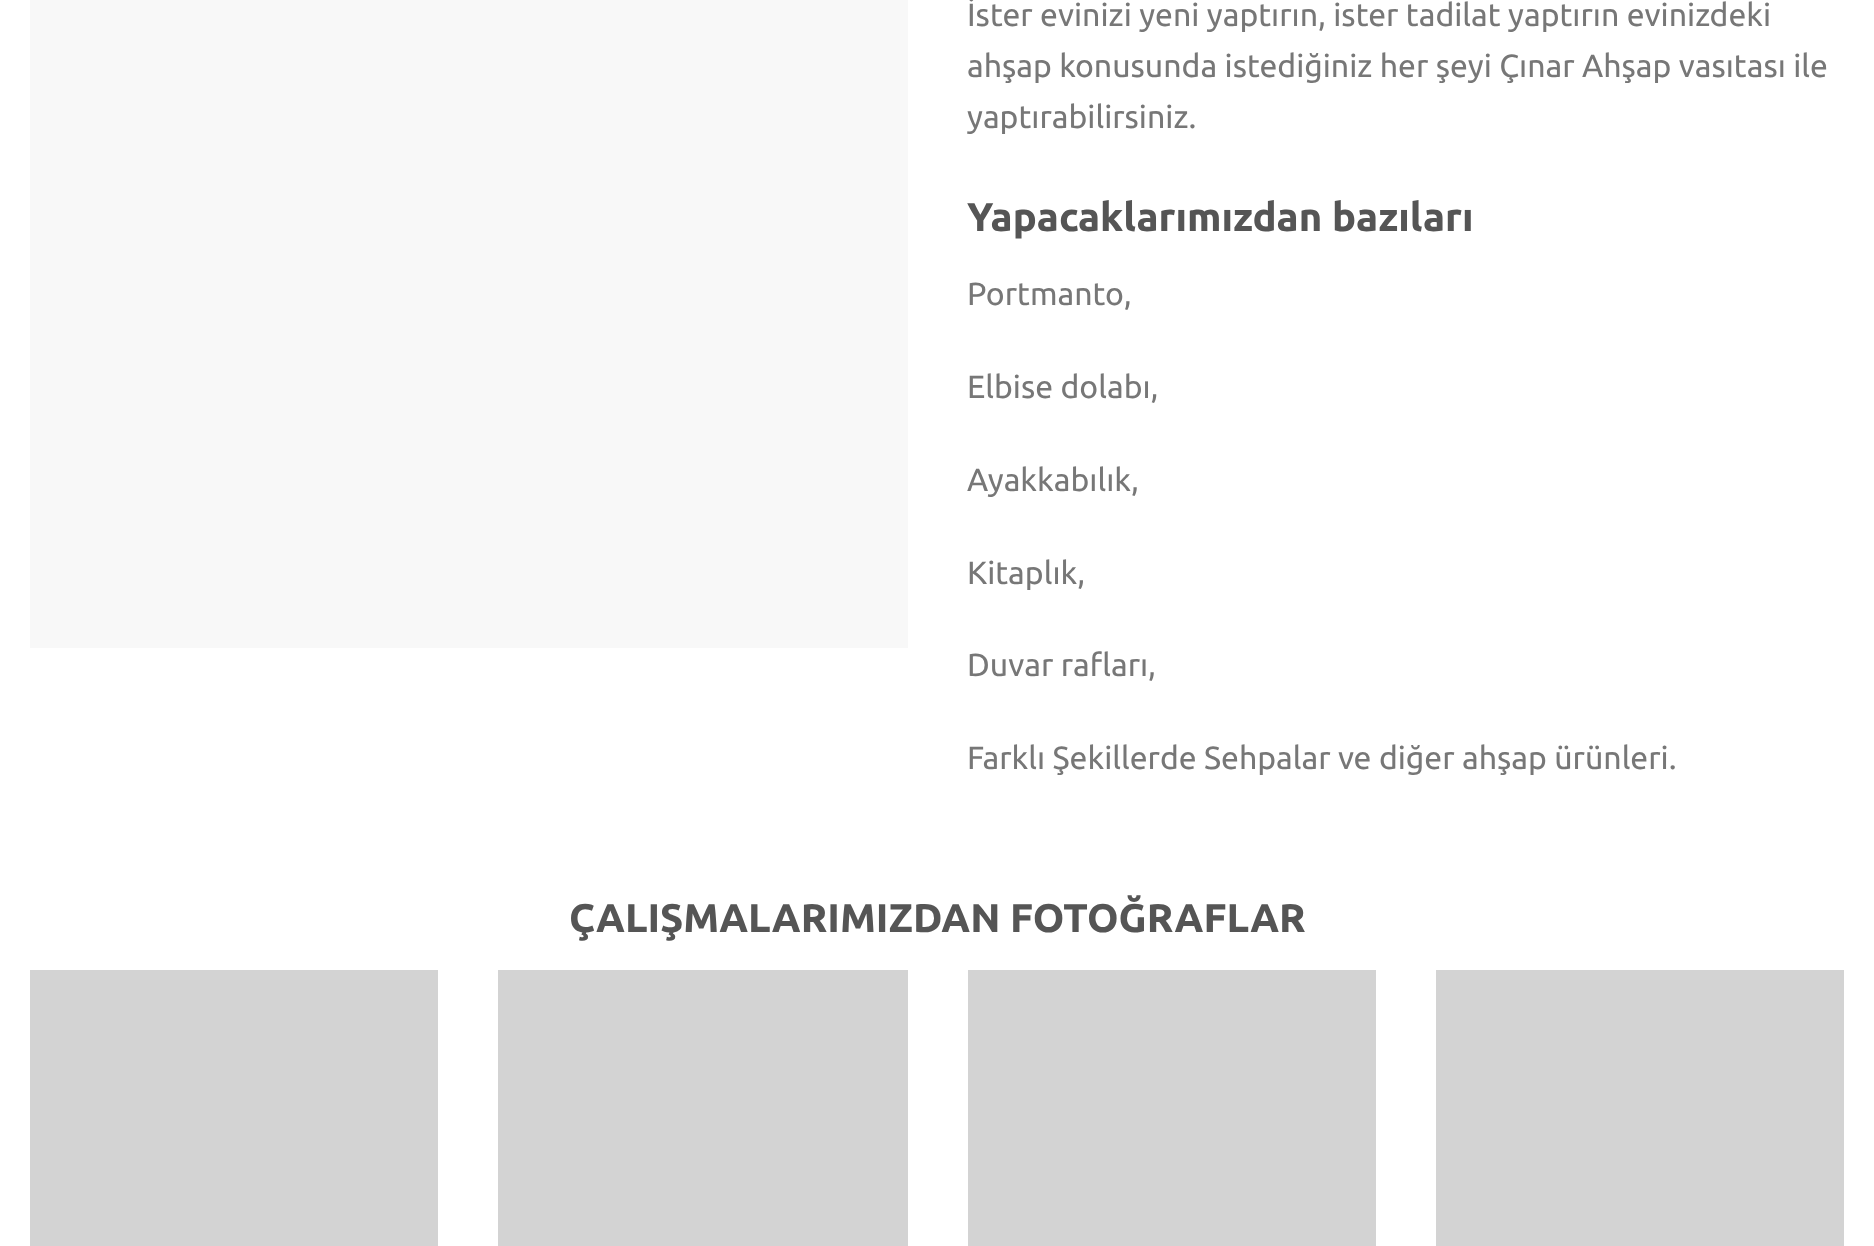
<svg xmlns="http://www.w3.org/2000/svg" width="1874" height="1246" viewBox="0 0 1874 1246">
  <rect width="100%" height="100%" fill="#ffffff"/>
  <rect x="30" y="0" width="878" height="648" fill="#f8f8f8"/>
  <text x="967" y="26" font-family="Ubuntu" font-size="32" fill="#777777">İster evinizi yeni yaptırın, ister tadilat yaptırın evinizdeki</text>
  <text x="967" y="77" font-family="Ubuntu" font-size="32" fill="#777777">ahşap konusunda istediğiniz her şeyi Çınar Ahşap vasıtası ile</text>
  <text x="967" y="128" font-family="Ubuntu" font-size="32" fill="#777777">yaptırabilirsiniz.</text>
  <text x="967" y="231" font-family="Ubuntu" font-size="40" font-weight="bold" fill="#555555">Yapacaklarımızdan bazıları</text>
  <text x="967" y="305" font-family="Ubuntu" font-size="32" fill="#777777">Portmanto,</text>
  <text x="967" y="398" font-family="Ubuntu" font-size="32" fill="#777777">Elbise dolabı,</text>
  <text x="967" y="491" font-family="Ubuntu" font-size="32" fill="#777777">Ayakkabılık,</text>
  <text x="967" y="584" font-family="Ubuntu" font-size="32" fill="#777777">Kitaplık,</text>
  <text x="967" y="676" font-family="Ubuntu" font-size="32" fill="#777777">Duvar rafları,</text>
  <text x="967" y="769" font-family="Ubuntu" font-size="32" fill="#777777">Farklı Şekillerde Sehpalar ve diğer ahşap ürünleri.</text>
  <text x="569" y="932" font-family="Ubuntu" font-size="40" font-weight="bold" fill="#555555">ÇALIŞMALARIMIZDAN FOTOĞRAFLAR</text>
  <rect x="30" y="970" width="408" height="276" fill="#d3d3d3"/>
  <rect x="498" y="970" width="410" height="276" fill="#d3d3d3"/>
  <rect x="968" y="970" width="408" height="276" fill="#d3d3d3"/>
  <rect x="1436" y="970" width="408" height="276" fill="#d3d3d3"/>
</svg>
